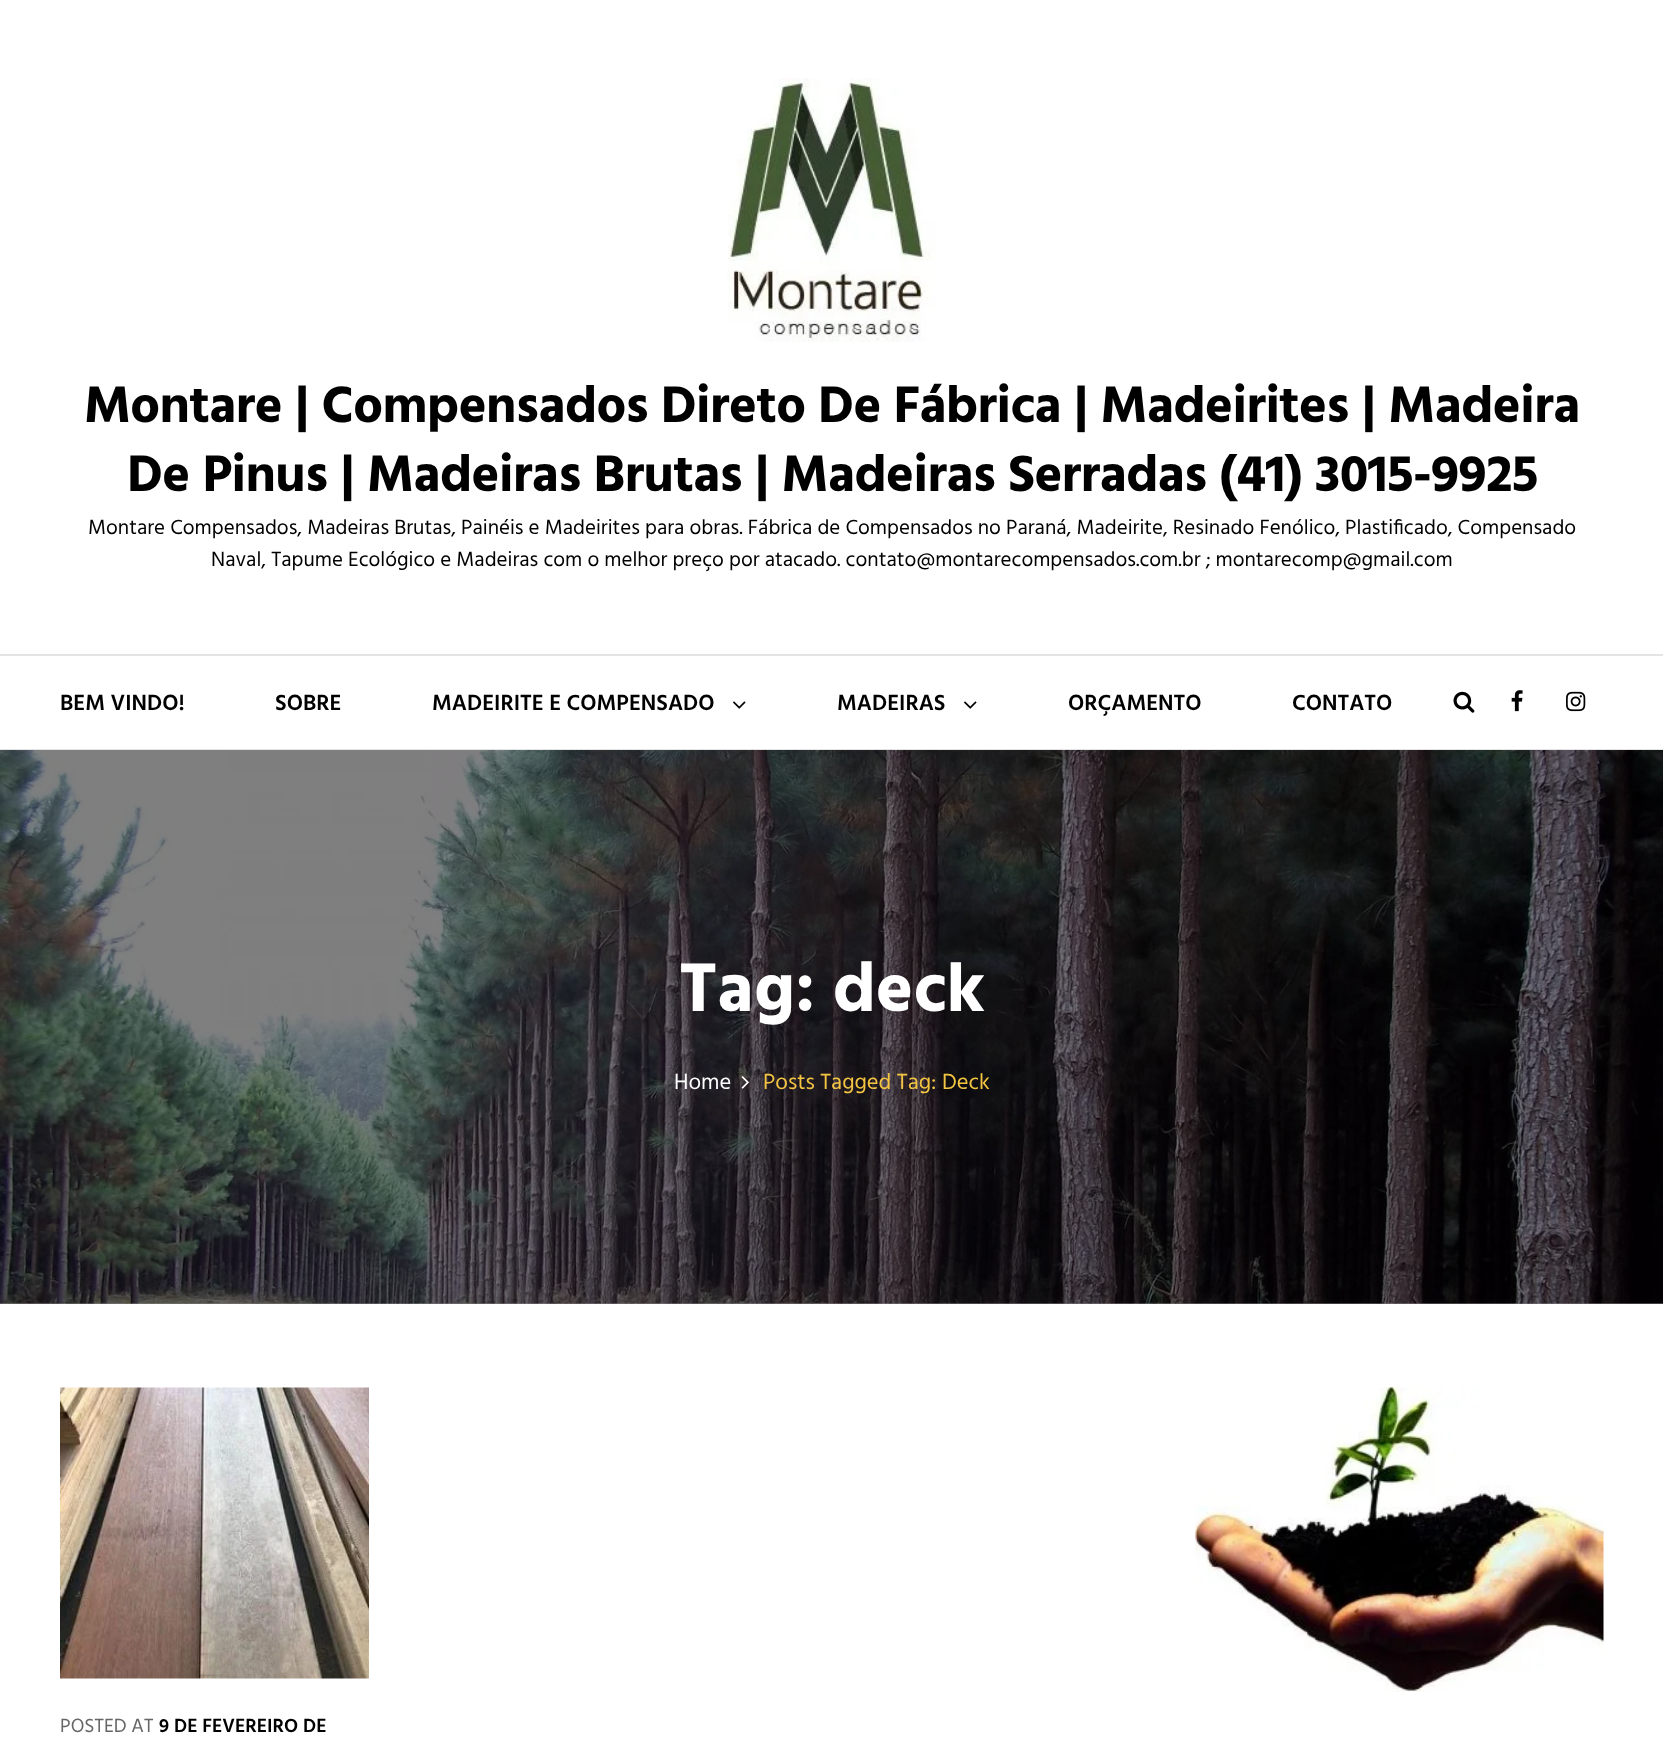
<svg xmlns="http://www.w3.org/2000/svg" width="1663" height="1740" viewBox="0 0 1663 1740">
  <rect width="100%" height="100%" fill="#ffffff"/>
  <image x="727" y="78" width="209" height="264" href="img1.png"/>
  <text x="84" y="422" font-family="Hind" font-size="52.5" font-weight="bold" letter-spacing="-0.52" fill="#000000">Montare | Compensados Direto De Fábrica | Madeirites | Madeira</text>
  <text x="127" y="491" font-family="Hind" font-size="52.5" font-weight="bold" letter-spacing="-0.52" fill="#000000">De Pinus | Madeiras Brutas | Madeiras Serradas (41) 3015-9925</text>
  <text x="88" y="534" font-family="Hind" font-size="21" fill="#000000">Montare Compensados, Madeiras Brutas, Painéis e Madeirites para obras. Fábrica de Compensados no Paraná, Madeirite, Resinado Fenólico, Plastificado, Compensado</text>
  <text x="211" y="566" font-family="Hind" font-size="21" fill="#000000">Naval, Tapume Ecológico e Madeiras com o melhor preço por atacado. contato@montarecompensados.com.br ; montarecomp@gmail.com</text>
  <rect x="0" y="654" width="1663" height="2" fill="#e4e4e4"/>
  <rect x="0" y="749" width="1663" height="1" fill="#e4e4e4"/>
  <text x="60" y="710" font-family="Hind" font-size="22.5" font-weight="600" fill="#000000">BEM VINDO!</text>
  <text x="275" y="710" font-family="Hind" font-size="22.5" font-weight="600" fill="#000000">SOBRE</text>
  <text x="432" y="710" font-family="Hind" font-size="22.5" font-weight="600" fill="#000000">MADEIRITE E COMPENSADO</text>
  <image x="733" y="701" width="13" height="8" href="img2.png"/>
  <text x="837" y="710" font-family="Hind" font-size="22.5" font-weight="600" fill="#000000">MADEIRAS</text>
  <image x="964" y="701" width="13" height="8" href="img2.png"/>
  <text x="1068" y="710" font-family="Hind" font-size="22.5" font-weight="600" fill="#000000">ORÇAMENTO</text>
  <text x="1292" y="710" font-family="Hind" font-size="22.5" font-weight="600" fill="#000000">CONTATO</text>
  <image x="1453" y="691" width="22" height="22" href="img3.png"/>
  <image x="1511" y="690" width="12" height="22" href="img4.png"/>
  <image x="1566" y="691" width="20" height="21" href="img5.png"/>
  <image x="0" y="750" width="1663" height="554" href="img6.png"/>
  <rect x="0" y="750" width="1663" height="554" fill="#000000" fill-opacity="0.5"/>
  <text x="679" y="1011" font-family="Hind" font-size="70.5" font-weight="bold" fill="#ffffff">Tag: deck</text>
  <text x="674" y="1089" font-family="Hind" font-size="22.5" fill="#ffffff">Home</text>
  <image x="741" y="1076" width="8" height="13" href="img7.png"/>
  <text x="763" y="1089" font-family="Hind" font-size="22.5" fill="#f4c543">Posts Tagged Tag: Deck</text>
  <image x="1195" y="1387" width="409" height="305" href="img8.png"/>
  <image x="60" y="1387" width="309" height="292" href="img9.png"/>
  <text x="60" y="1732" font-family="Hind" font-size="19.5" fill="#666666">POSTED AT</text>
  <text x="159" y="1732" font-family="Hind" font-size="19.5" font-weight="600" fill="#000000">9 DE FEVEREIRO DE</text>
</svg>
